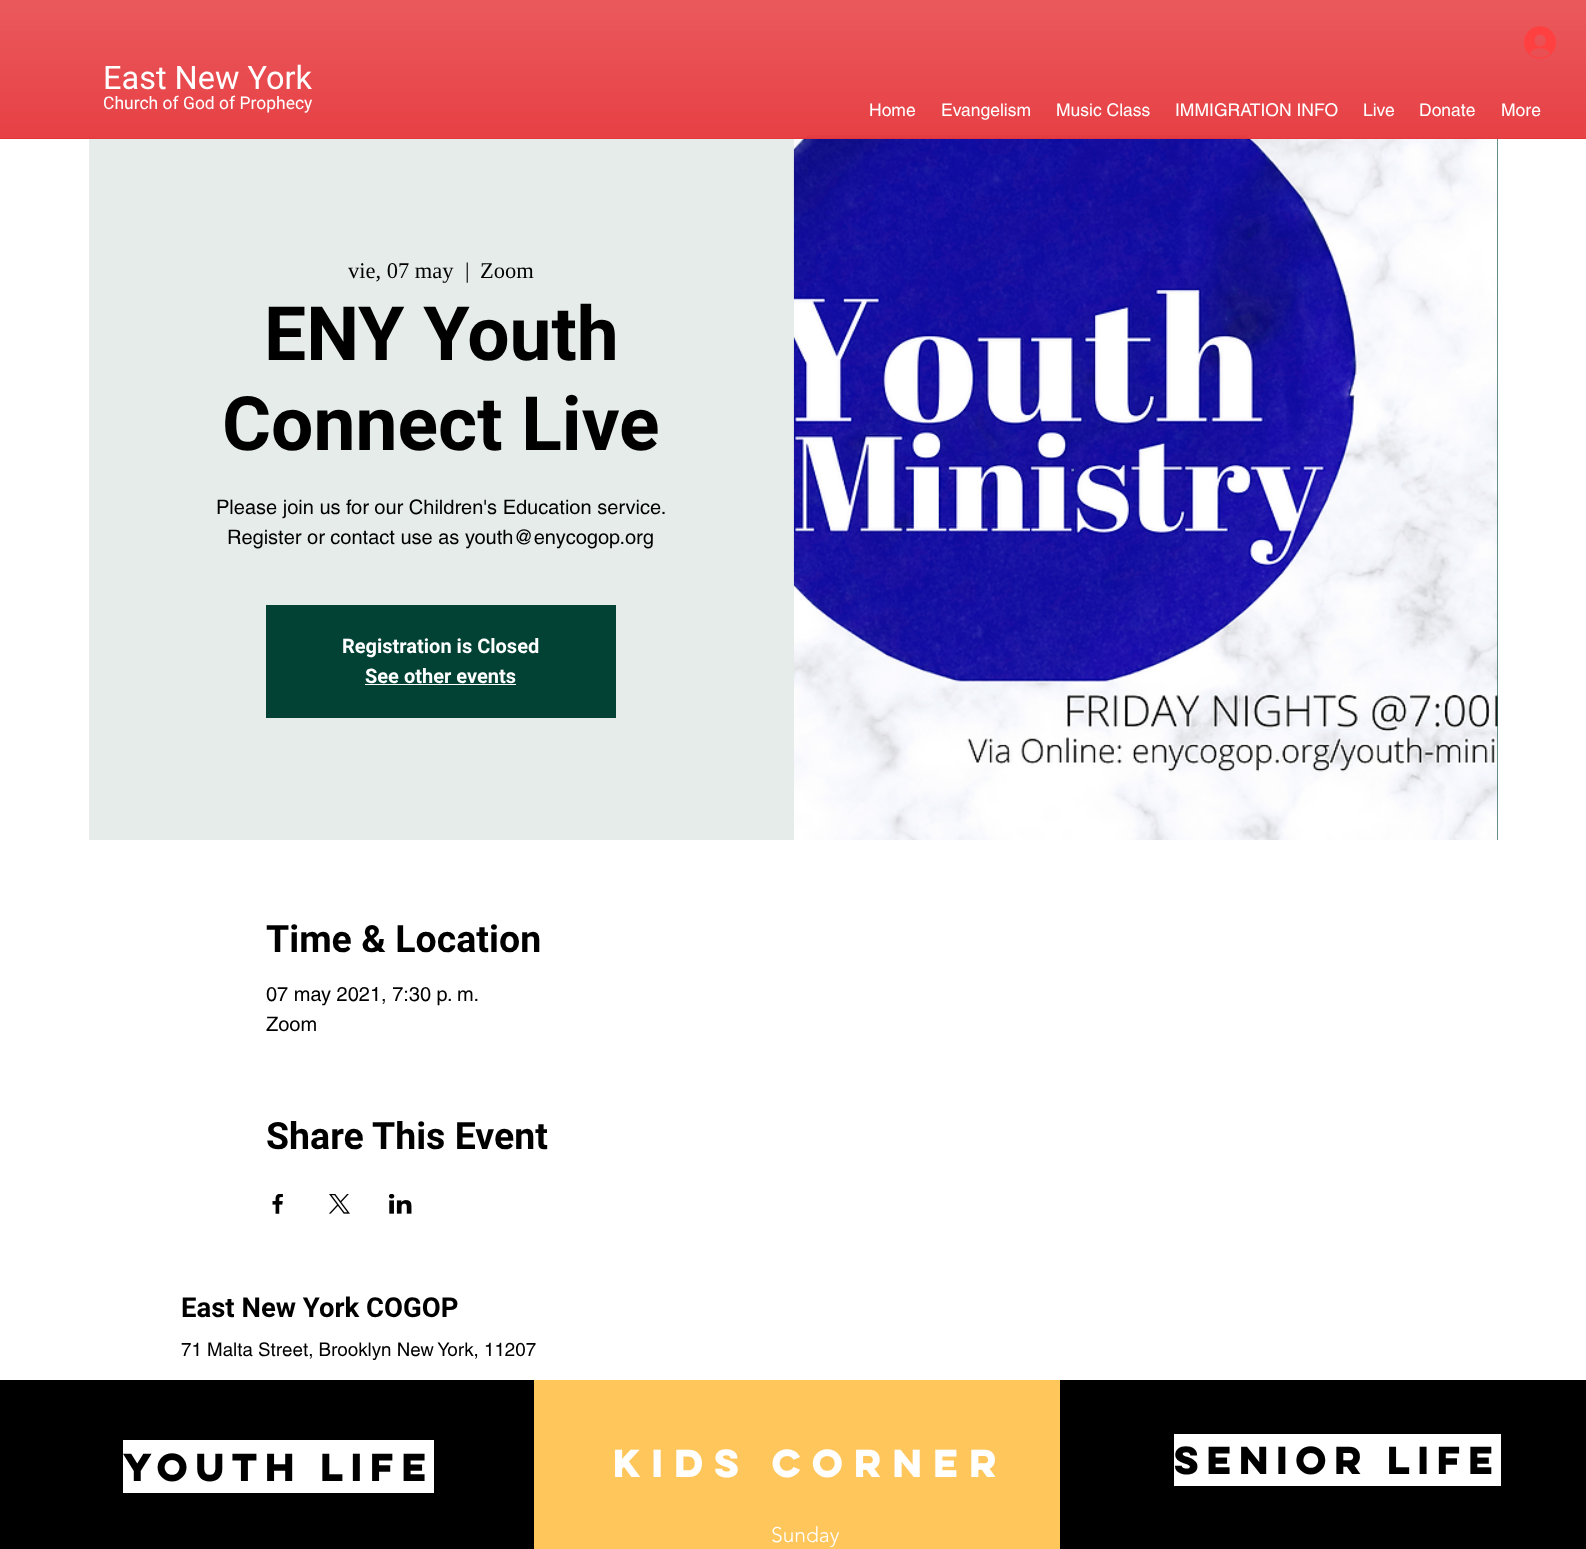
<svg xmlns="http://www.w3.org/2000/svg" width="1586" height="1549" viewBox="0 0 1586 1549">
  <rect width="100%" height="100%" fill="#ffffff"/>
  <rect x="1497" y="135" width="1" height="705" fill="#35685e"/>
  <image x="793" y="135" width="705" height="705" href="img3.png"/>
  <rect x="89" y="135" width="705" height="705" fill="#014235" fill-opacity="0.1"/>
  <rect x="0" y="0" width="1586" height="139" fill="#e21c21" fill-opacity="0.98"/>
  <image x="0" y="0" width="1586" height="139" href="img1.png"/>
  <image x="1524" y="26" width="32" height="33" href="img2.png"/>
  <text x="103" y="89" font-family="Roboto" font-size="32.5" fill="#ffffff">East New York</text>
  <text x="103" y="109" font-family="Roboto" font-size="17.5" fill="#ffffff">Church of God of Prophecy</text>
  <text x="869" y="116" font-family="helvetica" font-size="17.5" fill="#ffffff">Home</text>
  <text x="941" y="116" font-family="helvetica" font-size="17.5" fill="#ffffff">Evangelism</text>
  <text x="1056" y="116" font-family="helvetica" font-size="17.5" fill="#ffffff">Music Class</text>
  <text x="1175" y="116" font-family="helvetica" font-size="17.5" fill="#ffffff">IMMIGRATION INFO</text>
  <text x="1363" y="116" font-family="helvetica" font-size="17.5" fill="#ffffff">Live</text>
  <text x="1419" y="116" font-family="helvetica" font-size="17.5" fill="#ffffff">Donate</text>
  <text x="1501" y="116" font-family="helvetica" font-size="17.5" fill="#ffffff">More</text>
  <text x="348" y="278" font-family="Liberation Serif" font-size="22.5" fill="#000000">vie, 07 may</text>
  <text x="465" y="278" font-family="Liberation Serif" font-size="22.5" fill="#000000">|</text>
  <text x="480" y="278" font-family="Liberation Serif" font-size="22.5" fill="#000000">Zoom</text>
  <text x="264" y="360" font-family="Roboto" font-size="75" font-weight="bold" fill="#000000">ENY Youth</text>
  <text x="222" y="450" font-family="Roboto" font-size="75" font-weight="bold" fill="#000000">Connect Live</text>
  <text x="216" y="514" font-family="helvetica" font-size="20" fill="#000000">Please join us for our Children's Education service.</text>
  <text x="227" y="544" font-family="helvetica" font-size="20" fill="#000000">Register or contact use as youth@enycogop.org</text>
  <rect x="266" y="605" width="350" height="113" fill="#014235"/>
  <text x="342" y="653" font-family="Roboto" font-size="20" font-weight="bold" fill="#ffffff">Registration is Closed</text>
  <text x="365" y="683" font-family="Roboto" font-size="20" font-weight="bold" fill="#ffffff">See other events</text>
  <rect x="365" y="684" width="151" height="1" fill="#ffffff"/>
  <text x="266" y="952" font-family="Roboto" font-size="37.5" font-weight="bold" fill="#000000">Time &amp; Location</text>
  <text x="266" y="1001" font-family="helvetica" font-size="20" fill="#000000">07 may 2021, 7:30 p. m.</text>
  <text x="266" y="1031" font-family="helvetica" font-size="20" fill="#000000">Zoom</text>
  <text x="266" y="1149" font-family="Roboto" font-size="37.5" font-weight="bold" fill="#000000">Share This Event</text>
  <image x="272" y="1194" width="11" height="20" href="img4.png"/>
  <image x="329" y="1194" width="21" height="20" href="img5.png"/>
  <image x="389" y="1194" width="23" height="20" href="img6.png"/>
  <text x="181" y="1317" font-family="Roboto" font-size="27.5" font-weight="bold" fill="#000000">East New York COGOP</text>
  <text x="181" y="1356" font-family="helvetica" font-size="18.75" fill="#000000">71 Malta Street, Brooklyn New York, 11207</text>
  <rect x="0" y="1380" width="534" height="169" fill="#000000"/>
  <rect x="123" y="1440" width="311" height="53" fill="#ffffff"/>
  <text x="123" y="1481" font-family="'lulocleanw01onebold'" font-size="35" font-weight="bold" fill="#000000">youth Life</text>
  <rect x="534" y="1380" width="526" height="169" fill="#ffc65c"/>
  <text x="613" y="1477" font-family="'lulocleanw01onebold'" font-size="35" font-weight="bold" letter-spacing="3.5" fill="#ffffff">Kids Corner</text>
  <text x="771" y="1542" font-family="'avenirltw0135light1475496'" font-size="21" font-weight="300" fill="#ffffff">Sunday</text>
  <rect x="1060" y="1380" width="526" height="169" fill="#000000"/>
  <rect x="1174" y="1434" width="327" height="52" fill="#ffffff"/>
  <text x="1174" y="1474" font-family="'lulocleanw01onebold'" font-size="35" font-weight="bold" fill="#000000">Senior Life</text>
</svg>
